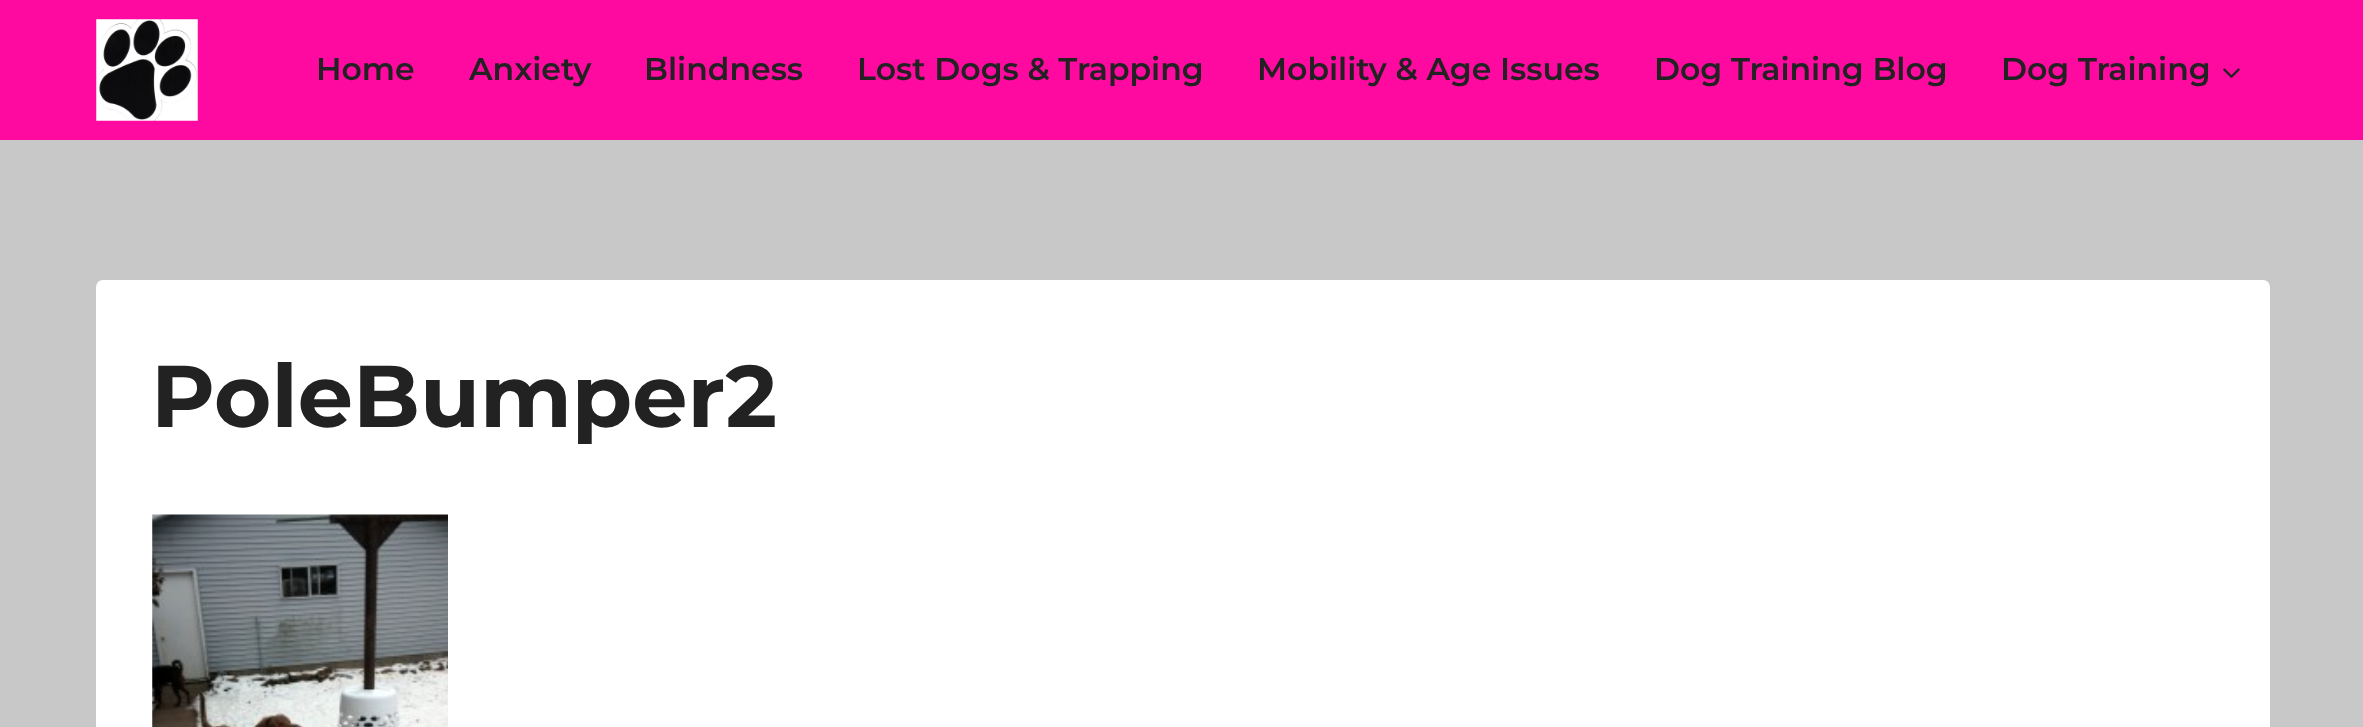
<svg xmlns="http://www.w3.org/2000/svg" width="2363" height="727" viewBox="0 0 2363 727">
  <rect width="100%" height="100%" fill="#c8c8c8"/>
  <rect x="0" y="0" width="2363" height="140" fill="#ff0aa1"/>
  <image x="96" y="19" width="102" height="102" href="img1.png"/>
  <text x="316" y="80" font-family="Montserrat" font-size="31.5" font-weight="600" fill="#222222">Home</text>
  <text x="469" y="80" font-family="Montserrat" font-size="31.5" font-weight="600" fill="#222222">Anxiety</text>
  <text x="644" y="80" font-family="Montserrat" font-size="31.5" font-weight="600" fill="#222222">Blindness</text>
  <text x="857" y="80" font-family="Montserrat" font-size="31.5" font-weight="600" fill="#222222">Lost Dogs &amp; Trapping</text>
  <text x="1257" y="80" font-family="Montserrat" font-size="31.5" font-weight="600" fill="#222222">Mobility &amp; Age Issues</text>
  <text x="1654" y="80" font-family="Montserrat" font-size="31.5" font-weight="600" fill="#222222">Dog Training Blog</text>
  <text x="2001" y="80" font-family="Montserrat" font-size="31.5" font-weight="600" fill="#222222">Dog Training</text>
  <image x="2223" y="68" width="17" height="10" href="img2.png"/>
  <rect x="96" y="280" width="2174" height="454" rx="7" fill="#ffffff"/>
  <text x="151" y="427" font-family="Montserrat" font-size="87.5" font-weight="bold" fill="#222222">PoleBumper2</text>
  <image x="152" y="514" width="296" height="213" href="img3.png"/>
</svg>
